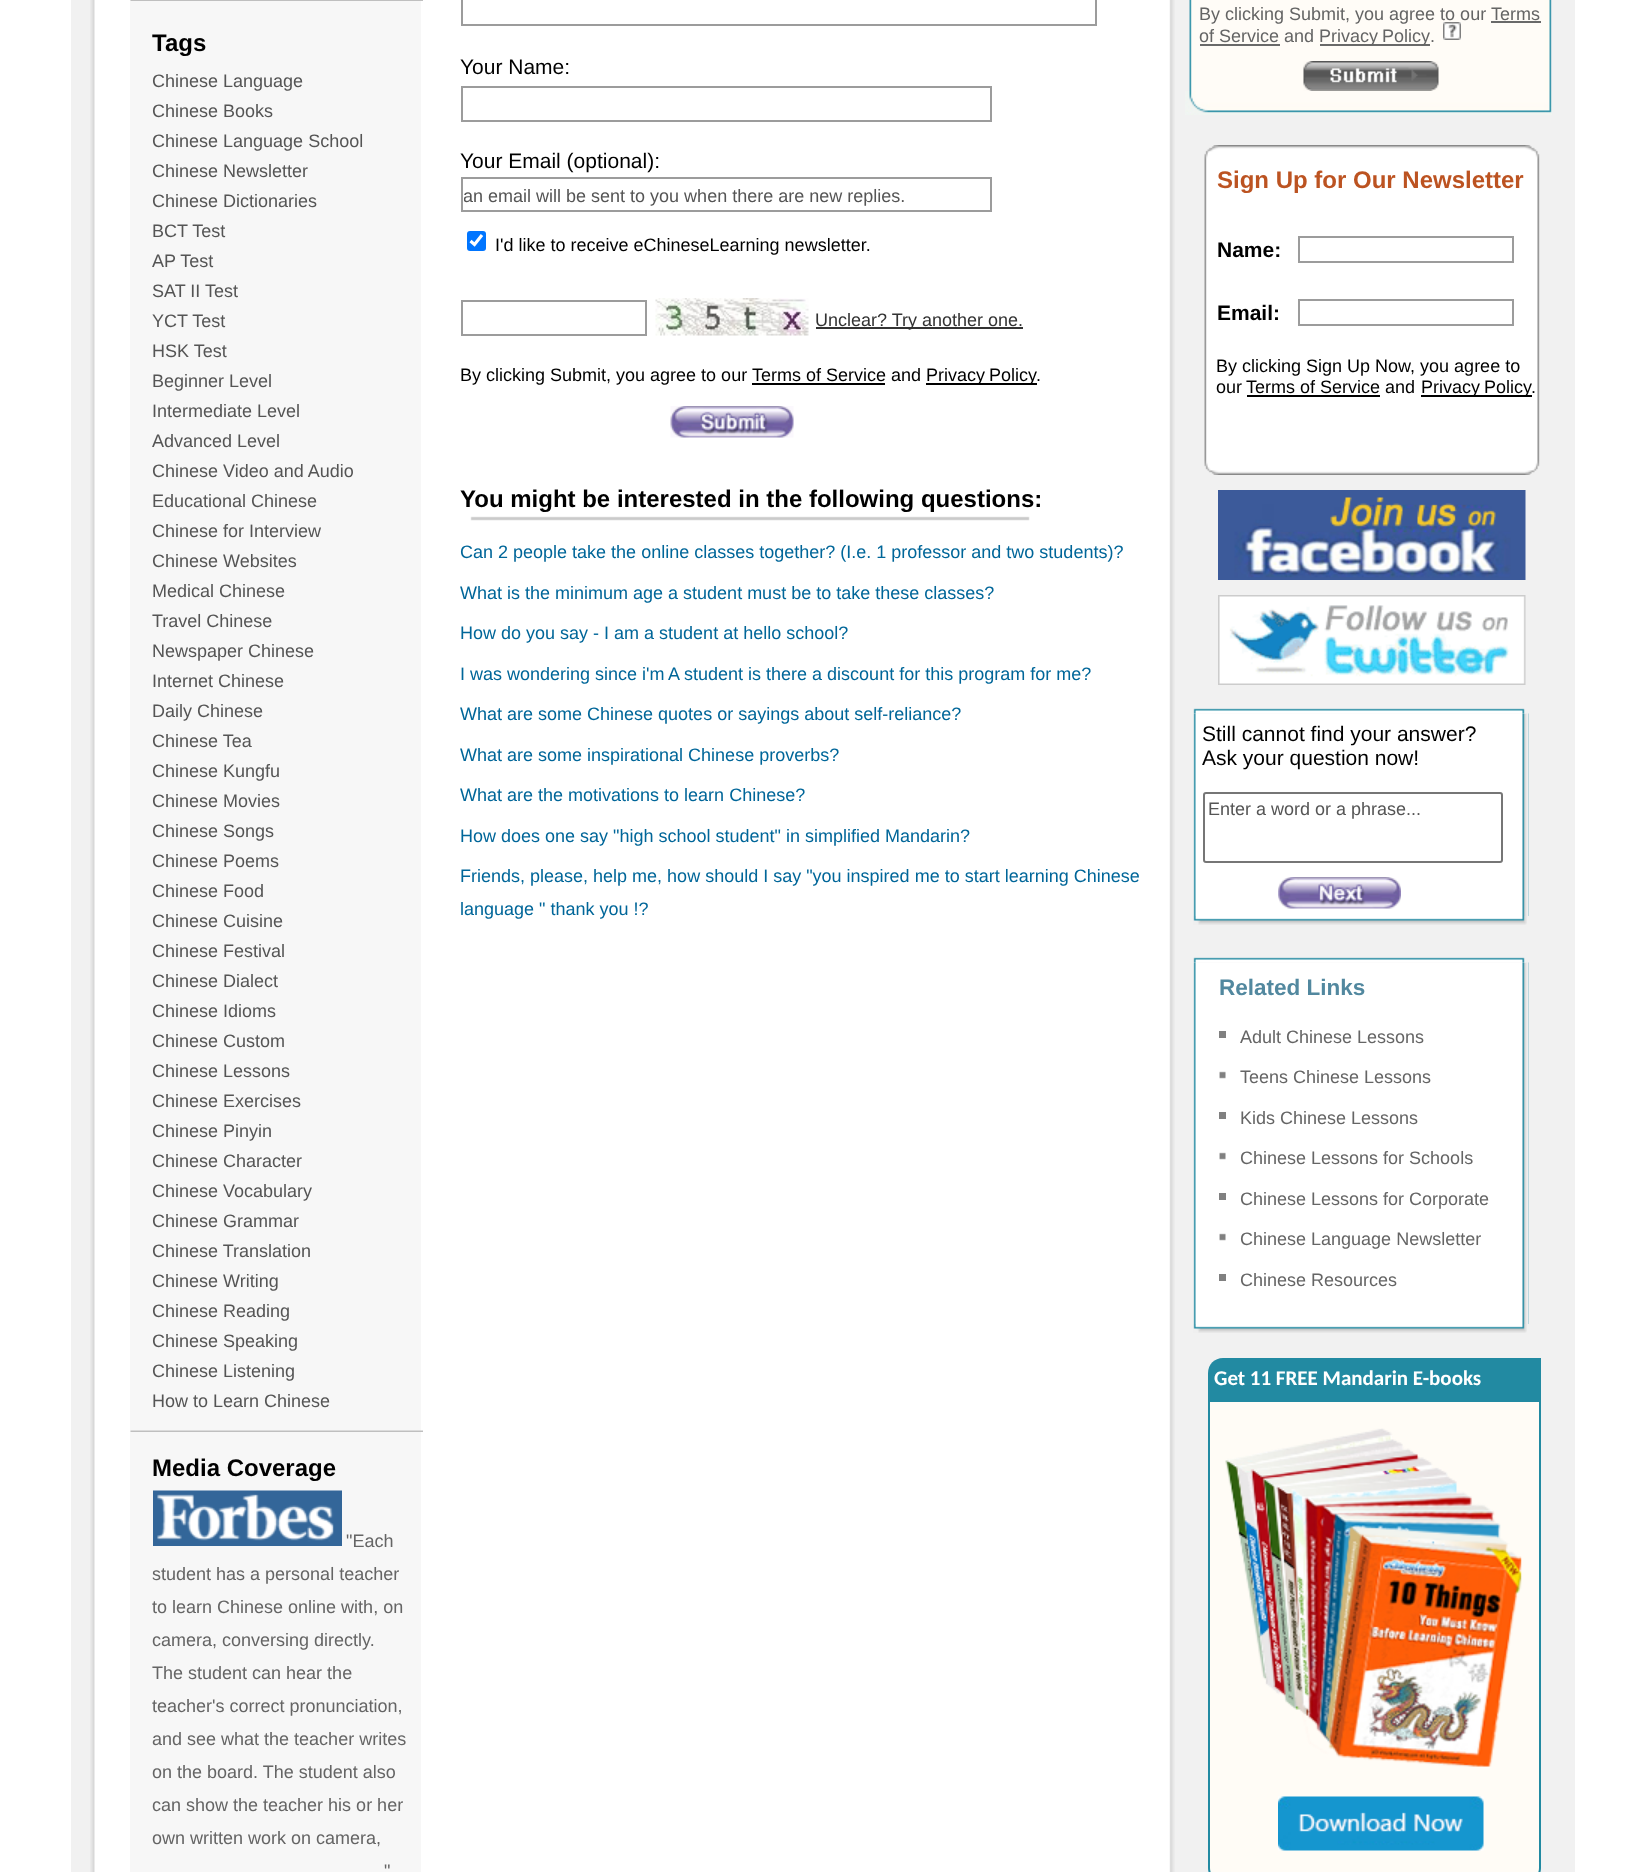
<svg xmlns="http://www.w3.org/2000/svg" width="1643" height="1872" viewBox="0 0 1643 1872">
  <defs>
    <clipPath id="clip1"><rect x="464" y="186" width="525" height="21"/></clipPath>
  </defs>
  <rect width="100%" height="100%" fill="#ffffff"/>
  <rect x="71" y="0" width="1504" height="1872" fill="#f1f1f1"/>
  <image x="90" y="0" width="1085" height="1872" href="img1.png"/>
  <rect x="130" y="0" width="291" height="1872" fill="#f7f7f7"/>
  <image x="130" y="0" width="293" height="1" href="img2.png"/>
  <text x="152" y="51" font-family="Liberation Sans" font-size="24" font-weight="bold" fill="#000000">Tags</text>
  <text x="152" y="87" font-family="Liberation Sans" font-size="18" fill="#555555">Chinese Language</text>
  <text x="152" y="117" font-family="Liberation Sans" font-size="18" fill="#555555">Chinese Books</text>
  <text x="152" y="147" font-family="Liberation Sans" font-size="18" fill="#555555">Chinese Language School</text>
  <text x="152" y="177" font-family="Liberation Sans" font-size="18" fill="#555555">Chinese Newsletter</text>
  <text x="152" y="207" font-family="Liberation Sans" font-size="18" fill="#555555">Chinese Dictionaries</text>
  <text x="152" y="237" font-family="Liberation Sans" font-size="18" fill="#555555">BCT Test</text>
  <text x="152" y="267" font-family="Liberation Sans" font-size="18" fill="#555555">AP Test</text>
  <text x="152" y="297" font-family="Liberation Sans" font-size="18" fill="#555555">SAT II Test</text>
  <text x="152" y="327" font-family="Liberation Sans" font-size="18" fill="#555555">YCT Test</text>
  <text x="152" y="357" font-family="Liberation Sans" font-size="18" fill="#555555">HSK Test</text>
  <text x="152" y="387" font-family="Liberation Sans" font-size="18" fill="#555555">Beginner Level</text>
  <text x="152" y="417" font-family="Liberation Sans" font-size="18" fill="#555555">Intermediate Level</text>
  <text x="152" y="447" font-family="Liberation Sans" font-size="18" fill="#555555">Advanced Level</text>
  <text x="152" y="477" font-family="Liberation Sans" font-size="18" fill="#555555">Chinese Video and Audio</text>
  <text x="152" y="507" font-family="Liberation Sans" font-size="18" fill="#555555">Educational Chinese</text>
  <text x="152" y="537" font-family="Liberation Sans" font-size="18" fill="#555555">Chinese for Interview</text>
  <text x="152" y="567" font-family="Liberation Sans" font-size="18" fill="#555555">Chinese Websites</text>
  <text x="152" y="597" font-family="Liberation Sans" font-size="18" fill="#555555">Medical Chinese</text>
  <text x="152" y="627" font-family="Liberation Sans" font-size="18" fill="#555555">Travel Chinese</text>
  <text x="152" y="657" font-family="Liberation Sans" font-size="18" fill="#555555">Newspaper Chinese</text>
  <text x="152" y="687" font-family="Liberation Sans" font-size="18" fill="#555555">Internet Chinese</text>
  <text x="152" y="717" font-family="Liberation Sans" font-size="18" fill="#555555">Daily Chinese</text>
  <text x="152" y="747" font-family="Liberation Sans" font-size="18" fill="#555555">Chinese Tea</text>
  <text x="152" y="777" font-family="Liberation Sans" font-size="18" fill="#555555">Chinese Kungfu</text>
  <text x="152" y="807" font-family="Liberation Sans" font-size="18" fill="#555555">Chinese Movies</text>
  <text x="152" y="837" font-family="Liberation Sans" font-size="18" fill="#555555">Chinese Songs</text>
  <text x="152" y="867" font-family="Liberation Sans" font-size="18" fill="#555555">Chinese Poems</text>
  <text x="152" y="897" font-family="Liberation Sans" font-size="18" fill="#555555">Chinese Food</text>
  <text x="152" y="927" font-family="Liberation Sans" font-size="18" fill="#555555">Chinese Cuisine</text>
  <text x="152" y="957" font-family="Liberation Sans" font-size="18" fill="#555555">Chinese Festival</text>
  <text x="152" y="987" font-family="Liberation Sans" font-size="18" fill="#555555">Chinese Dialect</text>
  <text x="152" y="1017" font-family="Liberation Sans" font-size="18" fill="#555555">Chinese Idioms</text>
  <text x="152" y="1047" font-family="Liberation Sans" font-size="18" fill="#555555">Chinese Custom</text>
  <text x="152" y="1077" font-family="Liberation Sans" font-size="18" fill="#555555">Chinese Lessons</text>
  <text x="152" y="1107" font-family="Liberation Sans" font-size="18" fill="#555555">Chinese Exercises</text>
  <text x="152" y="1137" font-family="Liberation Sans" font-size="18" fill="#555555">Chinese Pinyin</text>
  <text x="152" y="1167" font-family="Liberation Sans" font-size="18" fill="#555555">Chinese Character</text>
  <text x="152" y="1197" font-family="Liberation Sans" font-size="18" fill="#555555">Chinese Vocabulary</text>
  <text x="152" y="1227" font-family="Liberation Sans" font-size="18" fill="#555555">Chinese Grammar</text>
  <text x="152" y="1257" font-family="Liberation Sans" font-size="18" fill="#555555">Chinese Translation</text>
  <text x="152" y="1287" font-family="Liberation Sans" font-size="18" fill="#555555">Chinese Writing</text>
  <text x="152" y="1317" font-family="Liberation Sans" font-size="18" fill="#555555">Chinese Reading</text>
  <text x="152" y="1347" font-family="Liberation Sans" font-size="18" fill="#555555">Chinese Speaking</text>
  <text x="152" y="1377" font-family="Liberation Sans" font-size="18" fill="#555555">Chinese Listening</text>
  <text x="152" y="1407" font-family="Liberation Sans" font-size="18" fill="#555555">How to Learn Chinese</text>
  <image x="130" y="1430" width="293" height="2" href="img3.png"/>
  <text x="152" y="1476" font-family="Liberation Sans" font-size="24" font-weight="bold" fill="#000000">Media Coverage</text>
  <image x="153" y="1490" width="189" height="56" href="img4.png"/>
  <text x="346" y="1547" font-family="Liberation Sans" font-size="18" fill="#656565">"Each</text>
  <text x="152" y="1580" font-family="Liberation Sans" font-size="18" fill="#656565">student has a personal teacher</text>
  <text x="152" y="1613" font-family="Liberation Sans" font-size="18" fill="#656565">to learn Chinese online with, on</text>
  <text x="152" y="1646" font-family="Liberation Sans" font-size="18" fill="#656565">camera, conversing directly.</text>
  <text x="152" y="1679" font-family="Liberation Sans" font-size="18" fill="#656565">The student can hear the</text>
  <text x="152" y="1712" font-family="Liberation Sans" font-size="18" fill="#656565">teacher's correct pronunciation,</text>
  <text x="152" y="1745" font-family="Liberation Sans" font-size="18" fill="#656565">and see what the teacher writes</text>
  <text x="152" y="1778" font-family="Liberation Sans" font-size="18" fill="#656565">on the board. The student also</text>
  <text x="152" y="1811" font-family="Liberation Sans" font-size="18" fill="#656565">can show the teacher his or her</text>
  <text x="152" y="1844" font-family="Liberation Sans" font-size="18" fill="#656565">own written work on camera,</text>
  <text x="384" y="1877" font-family="Liberation Sans" font-size="18" fill="#656565">"</text>
  <rect x="462" y="-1" width="634" height="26" fill="none" stroke="#9c9c9c" stroke-width="2"/>
  <text x="460" y="74" font-family="Liberation Sans" font-size="21" fill="#000000">Your Name:</text>
  <rect x="462" y="87" width="529" height="34" fill="none" stroke="#9c9c9c" stroke-width="2"/>
  <text x="460" y="168" font-family="Liberation Sans" font-size="21" fill="#000000">Your Email (optional):</text>
  <rect x="462" y="178" width="529" height="33" fill="none" stroke="#9c9c9c" stroke-width="2"/>
  <g clip-path="url(#clip1)">
    <text x="463" y="202" font-family="Liberation Sans" font-size="18" fill="#555555">an email will be sent to you when there are new replies.</text>
  </g>
  <rect x="467" y="231" width="19" height="20" rx="3" fill="#0075ff"/>
  <path d="M470.5 241L474.5 244.5L482 235" fill="none" stroke="#ffffff" stroke-width="3.1"/>
  <text x="495" y="251" font-family="Liberation Sans" font-size="18" fill="#000000">I'd like to receive eChineseLearning newsletter.</text>
  <rect x="462" y="301" width="184" height="34" fill="none" stroke="#9c9c9c" stroke-width="2"/>
  <image x="655" y="298" width="154" height="38" href="img5.png"/>
  <rect x="816" y="327" width="207" height="2" fill="#333333"/>
  <text x="815" y="326" font-family="Liberation Sans" font-size="18" fill="#333333">Unclear? Try another one.</text>
  <text x="460" y="381" font-family="Liberation Sans" font-size="18" fill="#000000">By clicking Submit, you agree to our</text>
  <text x="752" y="381" font-family="Liberation Sans" font-size="18" fill="#000000">Terms of Service and</text>
  <rect x="752" y="383" width="133" height="2" fill="#000000"/>
  <rect x="926" y="383" width="111" height="2" fill="#000000"/>
  <text x="926" y="381" word-spacing="-1" font-family="Liberation Sans" font-size="18" fill="#000000">Privacy Policy</text>
  <text x="1036" y="381" font-family="Liberation Sans" font-size="18" fill="#000000">.</text>
  <image x="670" y="406" width="124" height="32" href="img6.png"/>
  <text x="460" y="507" font-family="Liberation Sans" font-size="24" font-weight="bold" fill="#000000">You might be interested in the following questions:</text>
  <image x="470" y="516" width="560" height="5" href="img7.png"/>
  <text x="460" y="558" font-family="Liberation Sans" font-size="18" fill="#006699">Can 2 people take the online classes together? (I.e. 1 professor and two students)?</text>
  <text x="460" y="599" font-family="Liberation Sans" font-size="18" fill="#006699">What is the minimum age a student must be to take these classes?</text>
  <text x="460" y="639" font-family="Liberation Sans" font-size="18" fill="#006699">How do you say - I am a student at hello school?</text>
  <text x="460" y="680" font-family="Liberation Sans" font-size="18" fill="#006699">I was wondering since i'm</text>
  <text x="668" y="680" font-family="Liberation Sans" font-size="18" fill="#006699">A student is there a discount for this program for me?</text>
  <text x="460" y="720" font-family="Liberation Sans" font-size="18" fill="#006699">What are some Chinese quotes or sayings about self-reliance?</text>
  <text x="460" y="761" font-family="Liberation Sans" font-size="18" fill="#006699">What are some inspirational Chinese proverbs?</text>
  <text x="460" y="801" font-family="Liberation Sans" font-size="18" fill="#006699">What are the motivations to learn Chinese?</text>
  <text x="460" y="842" font-family="Liberation Sans" font-size="18" fill="#006699">How does one say "high school student" in simplified Mandarin?</text>
  <text x="460" y="882" font-family="Liberation Sans" font-size="18" fill="#006699">Friends, please, help me, how should I say "you inspired me to start learning Chinese</text>
  <text x="460" y="915" font-family="Liberation Sans" font-size="18" fill="#006699">language " thank you !?</text>
  <image x="1189" y="0" width="363" height="91" href="img8.png"/>
  <text x="1199" y="20" font-family="Liberation Sans" font-size="18" fill="#656565">By clicking Submit, you agree to our</text>
  <text x="1491" y="20" font-family="Liberation Sans" font-size="18" fill="#656565">Terms</text>
  <rect x="1491" y="21" width="50" height="2" fill="#696969"/>
  <text x="1199" y="42" font-family="Liberation Sans" font-size="18" fill="#656565">of Service and</text>
  <rect x="1200" y="44" width="80" height="2" fill="#696969"/>
  <rect x="1320" y="44" width="110" height="2" fill="#696969"/>
  <text x="1319" y="42" word-spacing="-1" font-family="Liberation Sans" font-size="18" fill="#656565">Privacy Policy</text>
  <text x="1430" y="42" font-family="Liberation Sans" font-size="18" fill="#656565">.</text>
  <image x="1443" y="22" width="18" height="18" href="img9.png"/>
  <image x="1303" y="61" width="136" height="30" href="img10.png"/>
  <image x="1185" y="91" width="367" height="24" href="img11.png"/>
  <image x="1204" y="145" width="336" height="330" href="img12.png"/>
  <text x="1217" y="188" font-family="Liberation Sans" font-size="24" font-weight="bold" fill="#bc5321">Sign Up for Our Newsletter</text>
  <text x="1217" y="257" font-family="Liberation Sans" font-size="21" font-weight="bold" fill="#000000">Name:</text>
  <rect x="1299" y="237" width="214" height="25" fill="none" stroke="#9c9c9c" stroke-width="2"/>
  <text x="1217" y="320" font-family="Liberation Sans" font-size="21" font-weight="bold" fill="#000000">Email:</text>
  <rect x="1299" y="300" width="214" height="25" fill="none" stroke="#9c9c9c" stroke-width="2"/>
  <text x="1216" y="372" font-family="Liberation Sans" font-size="18" fill="#000000">By clicking Sign Up Now, you agree to</text>
  <text x="1216" y="393" font-family="Liberation Sans" font-size="18" fill="#000000">our</text>
  <text x="1246" y="393" font-family="Liberation Sans" font-size="18" fill="#000000">Terms of Service and</text>
  <rect x="1247" y="395" width="133" height="2" fill="#000000"/>
  <rect x="1421" y="395" width="111" height="2" fill="#000000"/>
  <text x="1421" y="393" word-spacing="-1" font-family="Liberation Sans" font-size="18" fill="#000000">Privacy Policy</text>
  <text x="1531" y="393" font-family="Liberation Sans" font-size="18" fill="#000000">.</text>
  <image x="1218" y="490" width="308" height="90" href="img13.png"/>
  <image x="1218" y="595" width="308" height="90" href="img14.png"/>
  <image x="1193" y="713" width="336" height="203" href="img16.png"/>
  <image x="1193" y="708" width="333" height="6" href="img15.png"/>
  <text x="1202" y="741" font-family="Liberation Sans" font-size="21" fill="#000000">Still cannot find your answer?</text>
  <text x="1202" y="765" font-family="Liberation Sans" font-size="21" fill="#000000">Ask your question now!</text>
  <rect x="1204" y="793" width="298" height="69" rx="2" fill="none" stroke="#767676" stroke-width="2"/>
  <text x="1208" y="815" font-family="Liberation Sans" font-size="18" fill="#555555">Enter a word or a phrase...</text>
  <image x="1278" y="877" width="123" height="32" href="img17.png"/>
  <image x="1193" y="916" width="334" height="9" href="img18.png"/>
  <image x="1193" y="962" width="336" height="362" href="img19.png"/>
  <image x="1193" y="957" width="333" height="6" href="img15.png"/>
  <text x="1219" y="995" font-family="Liberation Sans" font-size="22.5" font-weight="bold" fill="#52889f">Related Links</text>
  <rect x="1219" y="1031" width="7" height="7" fill="#808080"/>
  <text x="1240" y="1043" font-family="Liberation Sans" font-size="18" fill="#656565">Adult Chinese Lessons</text>
  <image x="1219" y="1071" width="7" height="8" href="img20.png"/>
  <text x="1240" y="1083" font-family="Liberation Sans" font-size="18" fill="#656565">Teens Chinese Lessons</text>
  <rect x="1219" y="1112" width="7" height="7" fill="#808080"/>
  <text x="1240" y="1124" font-family="Liberation Sans" font-size="18" fill="#656565">Kids Chinese Lessons</text>
  <image x="1219" y="1152" width="7" height="8" href="img20.png"/>
  <text x="1240" y="1164" font-family="Liberation Sans" font-size="18" fill="#656565">Chinese Lessons for Schools</text>
  <rect x="1219" y="1193" width="7" height="7" fill="#808080"/>
  <text x="1240" y="1205" font-family="Liberation Sans" font-size="18" fill="#656565">Chinese Lessons for Corporate</text>
  <image x="1219" y="1233" width="7" height="8" href="img20.png"/>
  <text x="1240" y="1245" font-family="Liberation Sans" font-size="18" fill="#656565">Chinese Language Newsletter</text>
  <rect x="1219" y="1274" width="7" height="7" fill="#808080"/>
  <text x="1240" y="1286" font-family="Liberation Sans" font-size="18" fill="#656565">Chinese Resources</text>
  <image x="1193" y="1324" width="334" height="9" href="img18.png"/>
  <path d="M1223 1358H1541V1400H1208V1373C1208 1364.5 1214.5 1358 1223 1358Z" fill="#228aa2"/>
  <text x="1214" y="1385" font-family="Carlito" font-size="21" font-weight="bold" fill="#ffffff">Get 11 FREE Mandarin E-books</text>
  <path d="M1209 1401H1540V1868C1540 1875.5 1533.5 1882 1526 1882H1223C1215.5 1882 1209 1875.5 1209 1868Z" fill="#fffcf6" stroke="#228aa2" stroke-width="2"/>
  <image x="1225" y="1428" width="297" height="339" href="img21.png"/>
  <image x="1278" y="1796" width="206" height="55" href="img22.png"/>
</svg>
